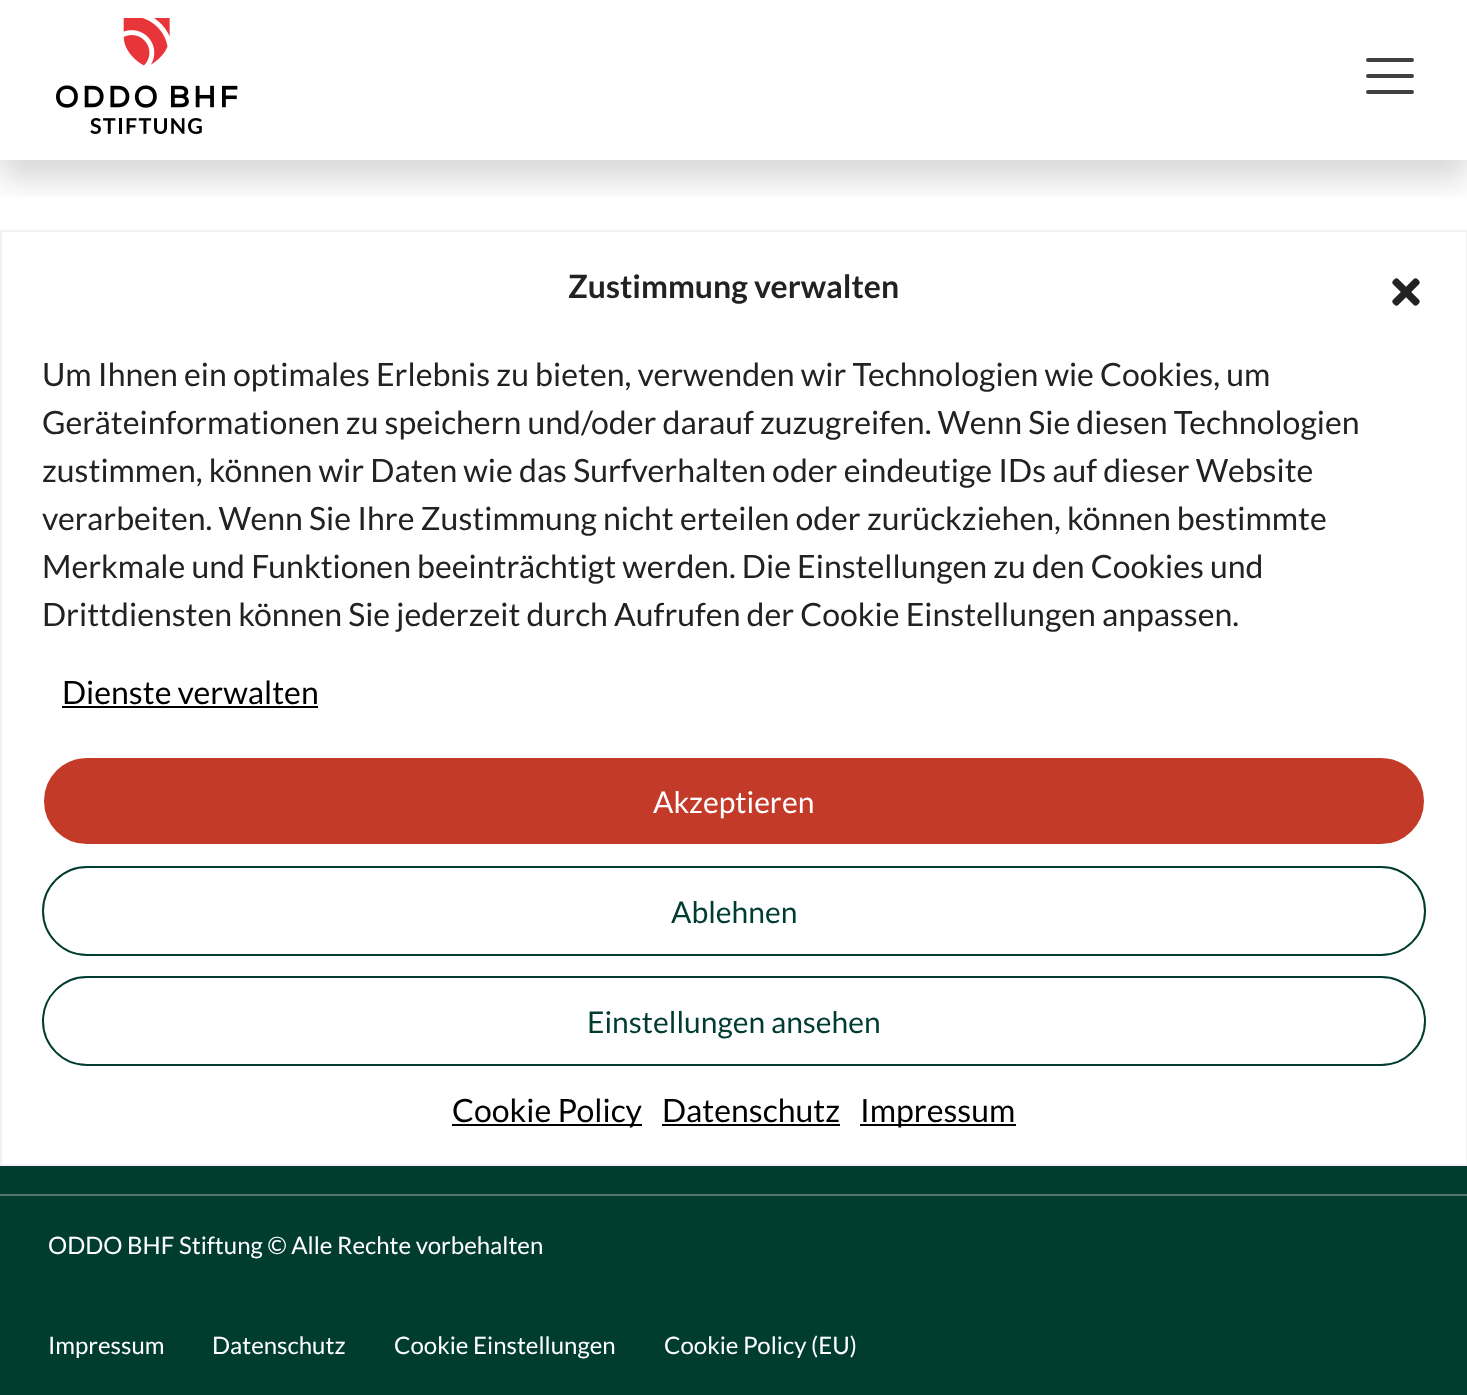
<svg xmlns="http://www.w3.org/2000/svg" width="1467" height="1395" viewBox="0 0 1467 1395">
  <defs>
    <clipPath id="clip1"><rect x="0" y="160" width="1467" height="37"/></clipPath>
    <filter id="blur1" x="-50%" y="-200%" width="200%" height="500%"><feGaussianBlur stdDeviation="15"/></filter>
  </defs>
  <rect width="100%" height="100%" fill="#ffffff"/>
  <rect x="1" y="231" width="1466" height="934" fill="none" stroke="#f2f2f2" stroke-width="2"/>
  <text x="568" y="298" font-family="Lato" font-size="32" font-weight="bold" fill="#222222">Zustimmung verwalten</text>
  <image x="1392" y="278" width="28" height="28" href="img1.png"/>
  <text x="42" y="386" font-family="Lato" font-size="32" fill="#222222">Um Ihnen ein optimales Erlebnis zu bieten, verwenden wir Technologien wie Cookies, um</text>
  <text x="42" y="434" font-family="Lato" font-size="32" fill="#222222">Geräteinformationen zu speichern und/oder darauf zuzugreifen. Wenn Sie diesen Technologien</text>
  <text x="42" y="482" font-family="Lato" font-size="32" fill="#222222">zustimmen, können wir Daten wie das Surfverhalten oder eindeutige IDs auf dieser Website</text>
  <text x="42" y="530" font-family="Lato" font-size="32" fill="#222222">verarbeiten. Wenn Sie Ihre Zustimmung nicht erteilen oder zurückziehen, können bestimmte</text>
  <text x="42" y="578" font-family="Lato" font-size="32" fill="#222222">Merkmale und Funktionen beeinträchtigt werden. Die Einstellungen zu den Cookies und</text>
  <text x="42" y="626" font-family="Lato" font-size="32" fill="#222222">Drittdiensten können Sie jederzeit durch Aufrufen der Cookie Einstellungen anpassen.</text>
  <text x="62" y="704" font-family="Lato" font-size="32" fill="#000000">Dienste verwalten</text>
  <rect x="62" y="706" width="256" height="2" fill="#000000"/>
  <rect x="43" y="757" width="1382" height="88" rx="44" fill="#c43a29" stroke="#ffffff" stroke-width="2"/>
  <text x="653" y="813" font-family="Lato" font-size="30" fill="#ffffff">Akzeptieren</text>
  <rect x="43" y="867" width="1382" height="88" rx="44" fill="none" stroke="#003c30" stroke-width="2"/>
  <text x="671" y="923" font-family="Lato" font-size="30" fill="#003c30">Ablehnen</text>
  <rect x="43" y="977" width="1382" height="88" rx="44" fill="none" stroke="#003c30" stroke-width="2"/>
  <text x="587" y="1033" font-family="Lato" font-size="30" fill="#003c30">Einstellungen ansehen</text>
  <rect x="452" y="1124" width="190" height="2" fill="#000000"/>
  <text x="452" y="1122" font-family="Lato" font-size="32" fill="#000000">Cookie Policy</text>
  <text x="662" y="1122" font-family="Lato" font-size="32" fill="#000000">Datenschutz</text>
  <rect x="662" y="1124" width="178" height="2" fill="#000000"/>
  <rect x="860" y="1124" width="156" height="2" fill="#000000"/>
  <text x="860" y="1122" font-family="Lato" font-size="32" fill="#000000">Impressum</text>
  <g clip-path="url(#clip1)">
    <rect x="0" y="20" width="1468" height="160" fill="#000000" fill-opacity="0.15" filter="url(#blur1)"/>
  </g>
  <image x="56" y="18" width="182" height="116" href="img2.png"/>
  <path d="M1368 60H1412M1368 76H1412M1368 92H1412" fill="none" stroke="#404040" stroke-width="4" stroke-linecap="round"/>
  <rect x="0" y="1166" width="1467" height="229" fill="#003c30"/>
  <rect x="0" y="1194" width="1467" height="2" fill="#4d776e"/>
  <text x="48" y="1254" font-family="Lato" font-size="24" fill="#ffffff">ODDO BHF Stiftung © Alle Rechte vorbehalten</text>
  <text x="48" y="1354" font-family="Lato" font-size="24" fill="#ffffff">Impressum</text>
  <text x="212" y="1354" font-family="Lato" font-size="24" fill="#ffffff">Datenschutz</text>
  <text x="394" y="1354" font-family="Lato" font-size="24" fill="#ffffff">Cookie Einstellungen</text>
  <text x="664" y="1354" font-family="Lato" font-size="24" fill="#ffffff">Cookie Policy (EU)</text>
</svg>
